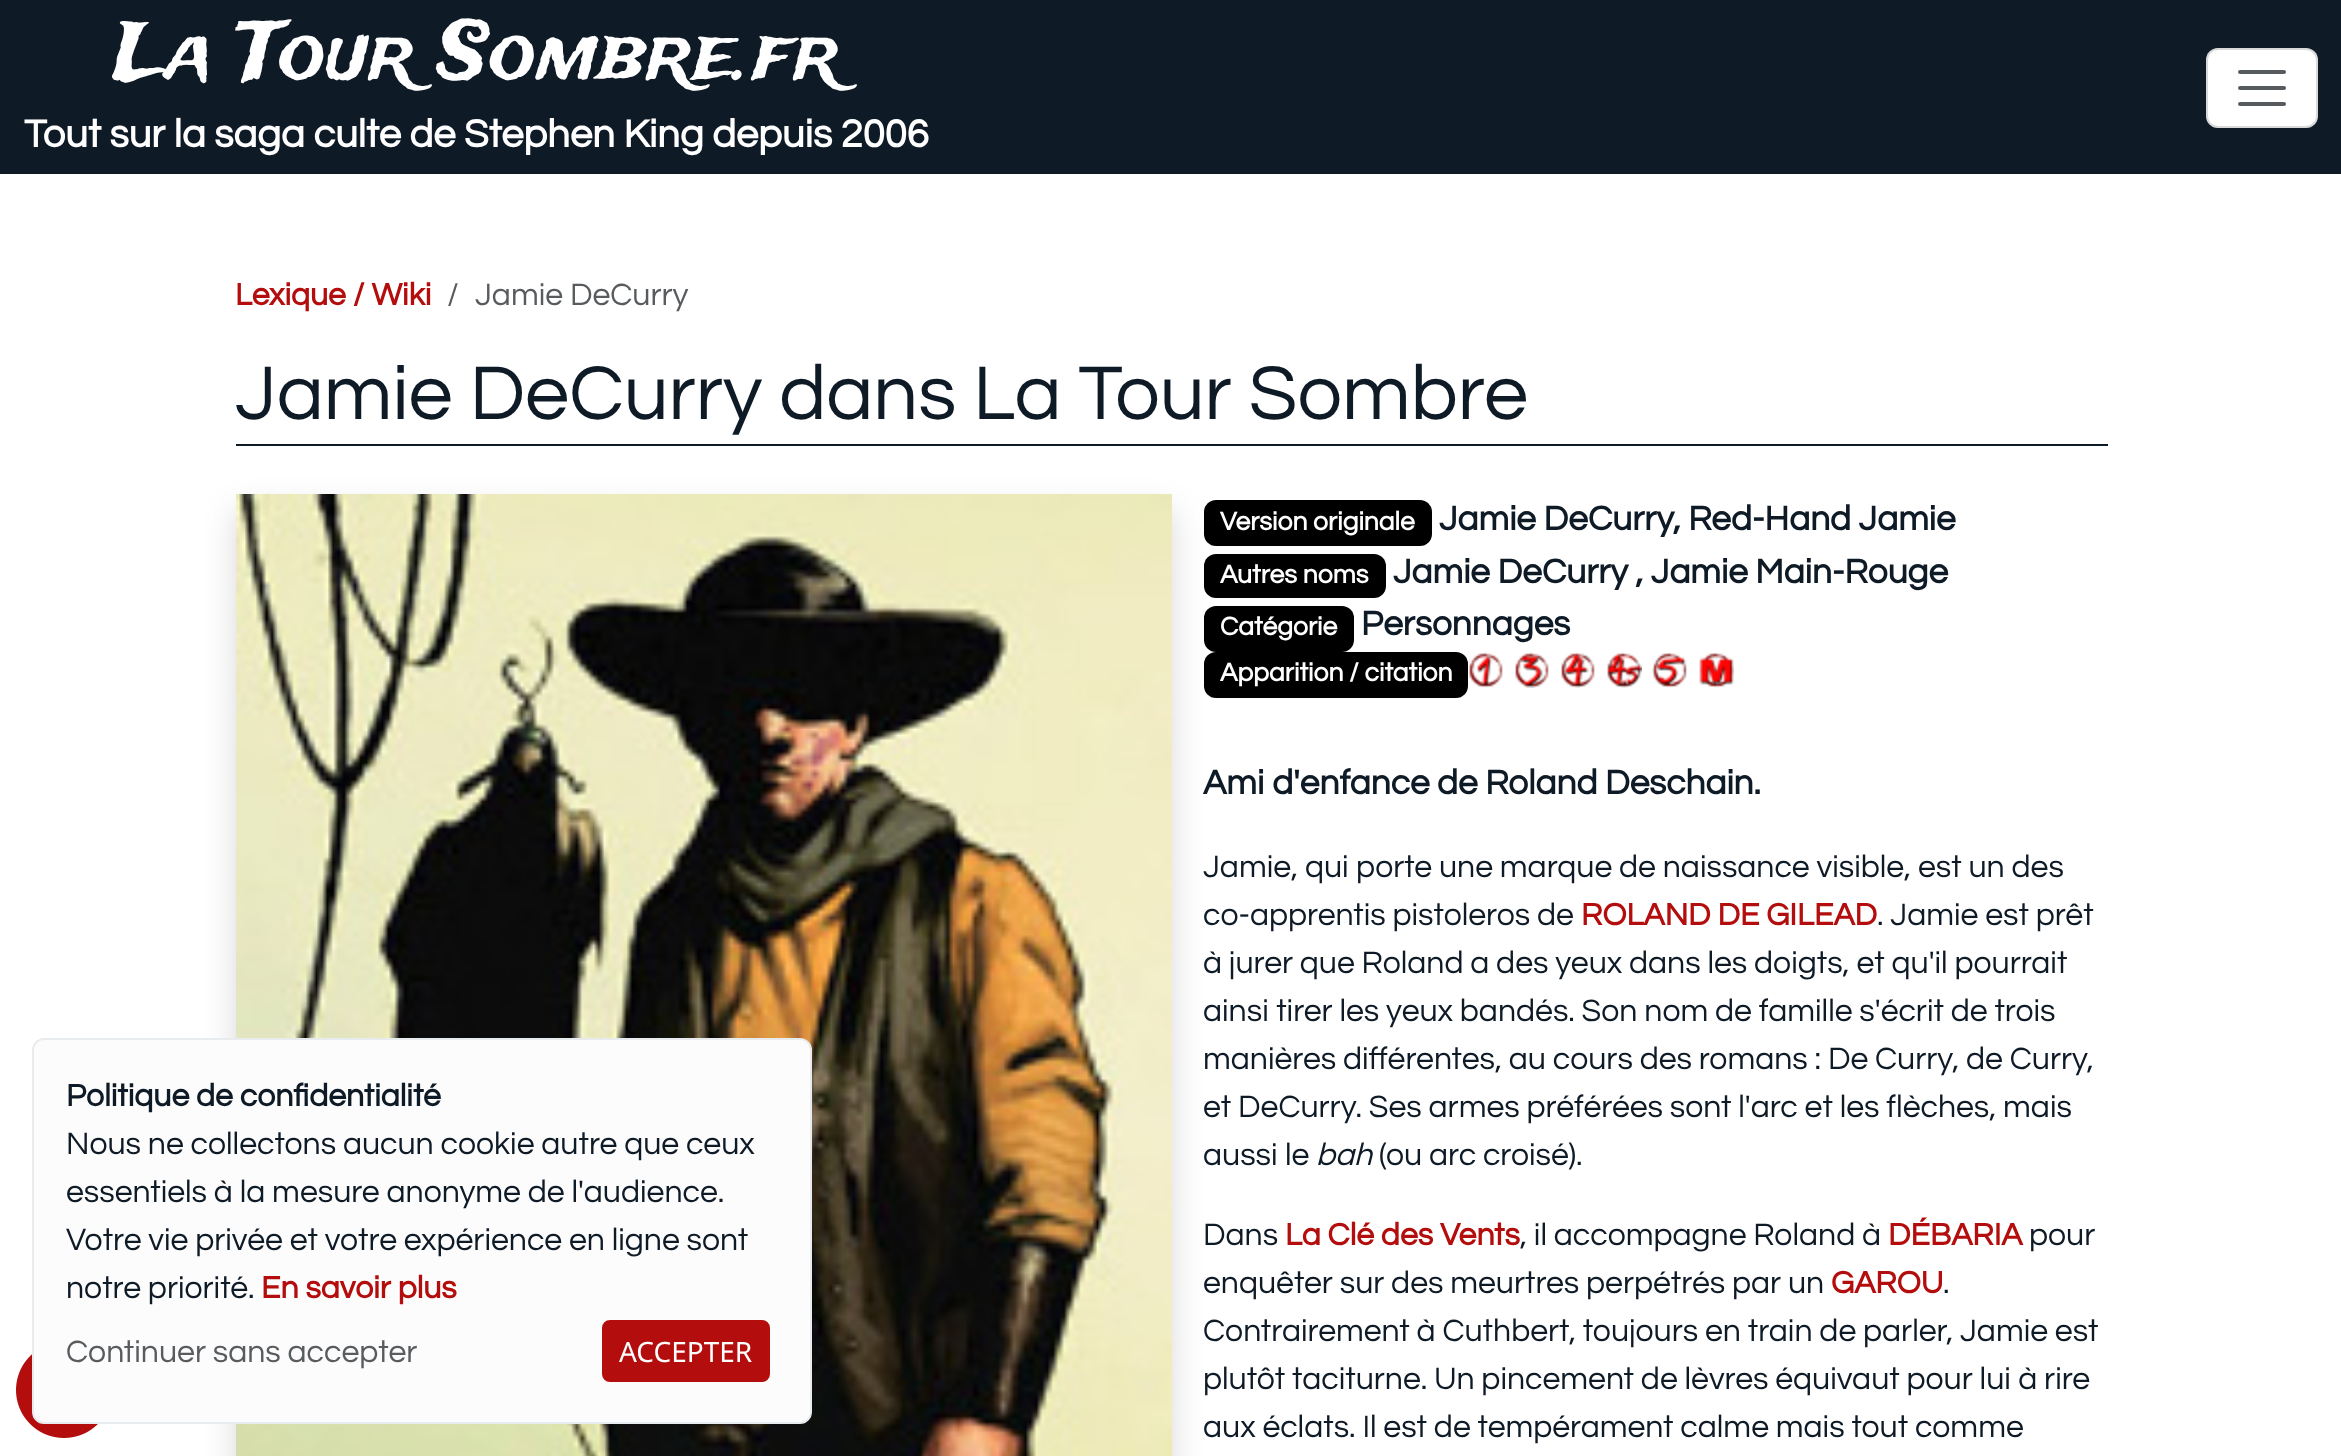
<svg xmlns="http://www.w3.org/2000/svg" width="2341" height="1456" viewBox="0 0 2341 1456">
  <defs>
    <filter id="blur1" x="-50%" y="-200%" width="200%" height="500%"><feGaussianBlur stdDeviation="16"/></filter>
  </defs>
  <rect width="100%" height="100%" fill="#ffffff"/>
  <rect x="0" y="0" width="2341" height="174" fill="#0e1a26"/>
  <text x="114" y="78" font-family="Trade Winds" font-size="79.1" fill="#ffffff">La Tour Sombre.fr</text>
  <text x="24" y="147" font-family="Questrial" font-size="40" font-weight="bold" fill="#ffffff">Tout sur la saga culte de Stephen King depuis 2006</text>
  <rect x="2206" y="48" width="112" height="80" rx="12" fill="#ffffff"/>
  <rect x="2207" y="49" width="110" height="78" rx="11" fill="none" stroke="#000000" stroke-opacity="0.15" stroke-width="2"/>
  <path d="M2240 72H2284M2240 88H2284M2240 104H2284" fill="none" stroke="#595c5f" stroke-width="4" stroke-linecap="round"/>
  <image x="16" y="1354" width="82" height="84" href="img1.png"/>
  <text x="235" y="305" font-family="Questrial" font-size="32" font-weight="bold" fill="#b40d0d">Lexique / Wiki</text>
  <text x="447" y="305" font-family="Questrial" font-size="32" fill="#595c5f">/</text>
  <text x="475" y="305" font-family="Questrial" font-size="32" fill="#595c5f">Jamie DeCurry</text>
  <rect x="236" y="444" width="1872" height="2" fill="#0e1a26"/>
  <text x="235" y="419" font-family="Questrial" font-size="79.1" fill="#0e1a26">Jamie DeCurry dans La Tour Sombre</text>
  <rect x="236" y="510" width="936" height="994" fill="#000000" fill-opacity="0.15" filter="url(#blur1)"/>
  <image x="236" y="494" width="936" height="962" href="img2.png"/>
  <rect x="1204" y="500" width="228" height="46" rx="12" fill="#000000"/>
  <text x="1220" y="530" font-family="Questrial" font-size="26.5" font-weight="bold" fill="#ffffff">Version originale</text>
  <text x="1439" y="530" font-family="Questrial" font-size="35.25" font-weight="bold" fill="#0e1a26">Jamie DeCurry, Red-Hand Jamie</text>
  <rect x="1204" y="554" width="182" height="44" rx="12" fill="#000000"/>
  <text x="1220" y="583" font-family="Questrial" font-size="26.5" font-weight="bold" fill="#ffffff">Autres noms</text>
  <text x="1393" y="583" font-family="Questrial" font-size="35.25" font-weight="bold" fill="#0e1a26">Jamie DeCurry , Jamie Main-Rouge</text>
  <rect x="1204" y="606" width="150" height="46" rx="12" fill="#000000"/>
  <text x="1220" y="635" font-family="Questrial" font-size="26.5" font-weight="bold" fill="#ffffff">Catégorie</text>
  <text x="1361" y="635" font-family="Questrial" font-size="35.25" font-weight="bold" fill="#0e1a26">Personnages</text>
  <rect x="1204" y="652" width="264" height="46" rx="12" fill="#000000"/>
  <text x="1220" y="681" font-family="Questrial" font-size="26.5" font-weight="bold" fill="#ffffff">Apparition / citation</text>
  <image x="1468" y="652" width="35" height="36" href="img3.png"/>
  <image x="1515" y="652" width="34" height="36" href="img4.png"/>
  <image x="1561" y="652" width="34" height="36" href="img5.png"/>
  <image x="1607" y="652" width="35" height="36" href="img6.png"/>
  <image x="1652" y="652" width="35" height="36" href="img7.png"/>
  <image x="1699" y="652" width="35" height="36" href="img8.png"/>
  <text x="1203" y="794" font-family="Questrial" font-size="35.25" font-weight="bold" fill="#0e1a26">Ami d'enfance de Roland Deschain.</text>
  <text x="1203" y="877" font-family="Questrial" font-size="32" fill="#0e1a26">Jamie, qui porte une marque de naissance visible, est un des</text>
  <text x="1203" y="925" font-family="Questrial" font-size="32" fill="#0e1a26">co-apprentis pistoleros de</text>
  <text x="1581" y="925" font-family="Questrial" font-size="32" font-weight="bold" fill="#b40d0d">ROLAND DE GILEAD</text>
  <text x="1877" y="925" font-family="Questrial" font-size="32" fill="#0e1a26">. Jamie est prêt</text>
  <text x="1203" y="973" font-family="Questrial" font-size="32" fill="#0e1a26">à jurer que Roland a des yeux dans les doigts, et qu'il pourrait</text>
  <text x="1203" y="1021" font-family="Questrial" font-size="32" fill="#0e1a26">ainsi tirer les yeux bandés. Son nom de famille s'écrit de trois</text>
  <text x="1203" y="1069" font-family="Questrial" font-size="32" fill="#0e1a26">manières différentes, au cours des romans : De Curry, de Curry,</text>
  <text x="1203" y="1117" font-family="Questrial" font-size="32" fill="#0e1a26">et DeCurry. Ses armes préférées sont l'arc et les flèches, mais</text>
  <text x="1203" y="1165" font-family="Questrial" font-size="32" fill="#0e1a26">aussi le</text>
  <text x="1316" y="1165" font-family="Questrial" font-size="32" font-style="italic" fill="#0e1a26">bah</text>
  <text x="1379" y="1165" font-family="Questrial" font-size="32" fill="#0e1a26">(ou arc croisé).</text>
  <text x="1203" y="1245" font-family="Questrial" font-size="32" fill="#0e1a26">Dans</text>
  <text x="1285" y="1245" font-family="Questrial" font-size="32" font-weight="bold" fill="#b40d0d">La Clé des Vents</text>
  <text x="1520" y="1245" font-family="Questrial" font-size="32" fill="#0e1a26">, il accompagne Roland à</text>
  <text x="1888" y="1245" font-family="Questrial" font-size="32" font-weight="bold" fill="#b40d0d">DÉBARIA</text>
  <text x="2029" y="1245" font-family="Questrial" font-size="32" fill="#0e1a26">pour</text>
  <text x="1203" y="1293" font-family="Questrial" font-size="32" fill="#0e1a26">enquêter sur des meurtres perpétrés par un</text>
  <text x="1831" y="1293" font-family="Questrial" font-size="32" font-weight="bold" fill="#b40d0d">GAROU</text>
  <text x="1943" y="1293" font-family="Questrial" font-size="32" fill="#0e1a26">.</text>
  <text x="1203" y="1341" font-family="Questrial" font-size="32" fill="#0e1a26">Contrairement à Cuthbert, toujours en train de parler, Jamie est</text>
  <text x="1203" y="1389" font-family="Questrial" font-size="32" fill="#0e1a26">plutôt taciturne. Un pincement de lèvres équivaut pour lui à rire</text>
  <text x="1203" y="1437" font-family="Questrial" font-size="32" fill="#0e1a26">aux éclats. Il est de tempérament calme mais tout comme</text>
  <rect x="33" y="1039" width="778" height="384" rx="11" fill="#fcfcfd" stroke="#e9ecef" stroke-width="2"/>
  <text x="66" y="1106" font-family="Questrial" font-size="32" font-weight="bold" fill="#0e1a26">Politique de confidentialité</text>
  <text x="66" y="1154" font-family="Questrial" font-size="32" fill="#0e1a26">Nous ne collectons aucun cookie autre que ceux</text>
  <text x="66" y="1202" font-family="Questrial" font-size="32" fill="#0e1a26">essentiels à la mesure anonyme de l'audience.</text>
  <text x="66" y="1250" font-family="Questrial" font-size="32" fill="#0e1a26">Votre vie privée et votre expérience en ligne sont</text>
  <text x="66" y="1298" font-family="Questrial" font-size="32" fill="#0e1a26">notre priorité.</text>
  <text x="261" y="1298" font-family="Questrial" font-size="32" font-weight="bold" fill="#b40d0d">En savoir plus</text>
  <text x="66" y="1362" font-family="Questrial" font-size="32" fill="#595c5f">Continuer sans accepter</text>
  <rect x="603" y="1321" width="166" height="60" rx="7" fill="#b40d0d" stroke="#b40d0d" stroke-width="2"/>
  <text x="619" y="1362" font-family="Noto Sans" font-size="28" fill="#ffffff">ACCEPTER</text>
</svg>
